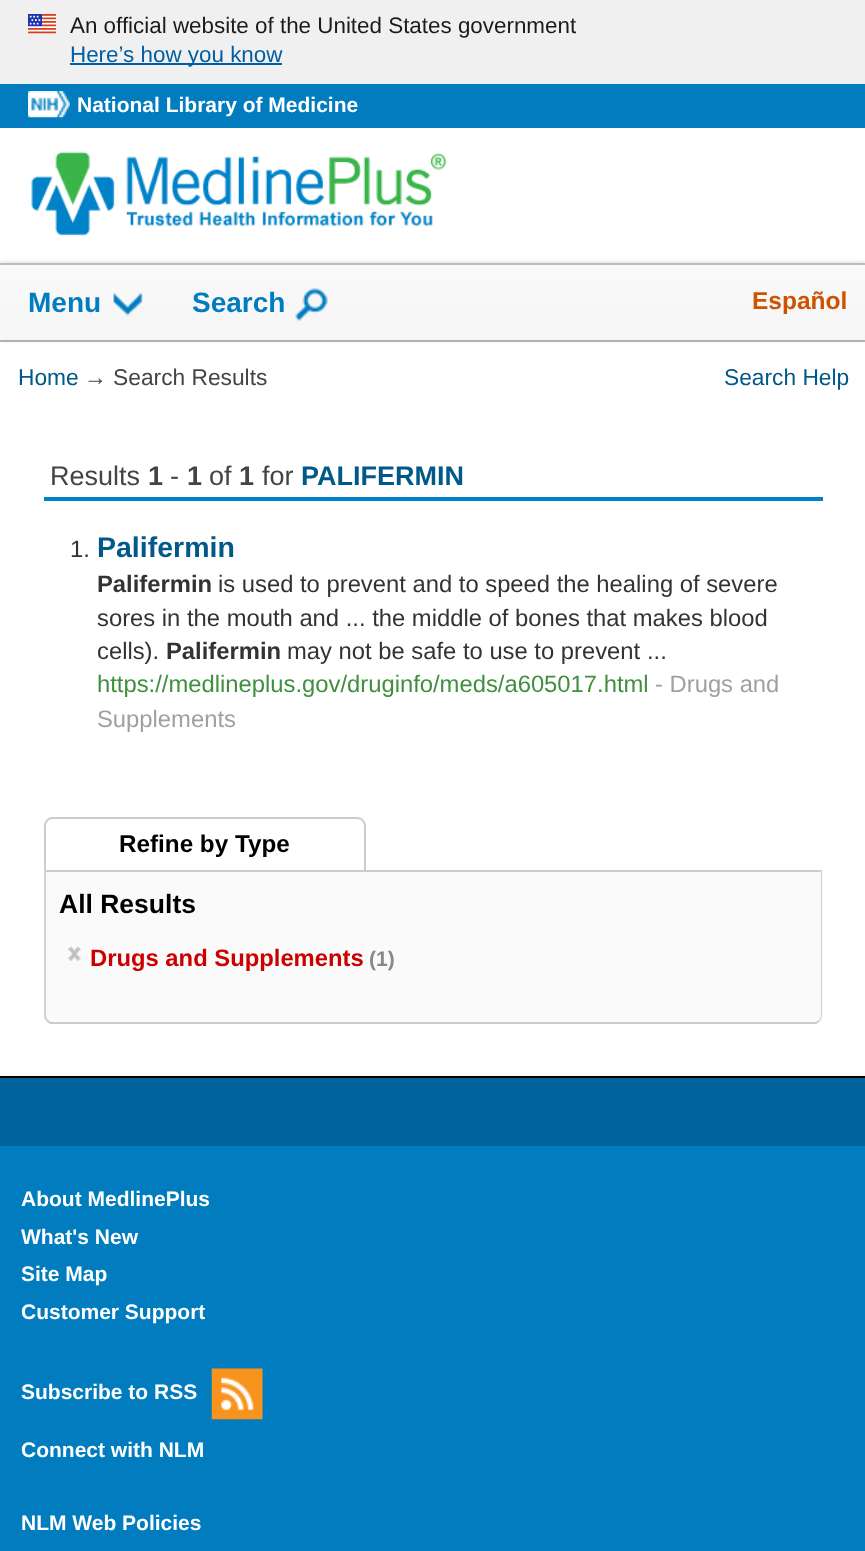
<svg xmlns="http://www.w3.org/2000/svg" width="865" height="1551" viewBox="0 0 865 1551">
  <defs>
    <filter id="blur1" x="-50%" y="-200%" width="200%" height="500%"><feGaussianBlur stdDeviation="2"/></filter>
    <linearGradient id="g1" gradientUnits="userSpaceOnUse" x1="433" y1="264" x2="433" y2="340"><stop offset="0.1" stop-color="#fafafa"/><stop offset="0.75" stop-color="#f6f6f6"/></linearGradient>
  </defs>
  <rect width="100%" height="100%" fill="#ffffff"/>
  <rect x="0" y="0" width="865" height="84" fill="#f0f0f0"/>
  <image x="28" y="14" width="28" height="20" href="img1.png"/>
  <text x="70" y="33" font-family="Liberation Sans" font-size="22.4" fill="#1b1b1b">An official website of the United States government</text>
  <rect x="70" y="63" width="212" height="2" fill="#005ea2"/>
  <text x="70" y="62" font-family="Liberation Sans" font-size="22.4" fill="#005ea2">Here’s how you know</text>
  <rect x="0" y="84" width="865" height="44" fill="#007cbf"/>
  <image x="28" y="91" width="42" height="27" href="img2.png"/>
  <text x="77" y="112" font-family="Liberation Sans" font-size="21" font-weight="bold" fill="#ffffff">National Library of Medicine</text>
  <image x="31" y="151" width="416" height="85" href="img3.png"/>
  <rect x="0" y="340" width="865" height="2" fill="#bdbdbd"/>
  <rect x="0" y="263" width="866" height="77" fill="#000000" fill-opacity="0.2" filter="url(#blur1)"/>
  <rect x="0" y="265" width="865" height="75" fill="url(#g1)"/>
  <rect x="0" y="263" width="865" height="2" fill="#bdbdbd"/>
  <text x="28" y="312" font-family="Liberation Sans" font-size="28" font-weight="bold" fill="#007cbf">Menu</text>
  <image x="113" y="292" width="30" height="24" href="img4.png"/>
  <text x="192" y="312" font-family="Liberation Sans" font-size="28" font-weight="bold" fill="#007cbf">Search</text>
  <image x="295" y="288" width="33" height="33" href="img5.png"/>
  <text x="752" y="309" font-family="Liberation Sans" font-size="24.5" font-weight="bold" fill="#cf5200">Español</text>
  <text x="18" y="385" font-family="Liberation Sans" font-size="22.75" fill="#005988">Home</text>
  <text x="84" y="385" font-family="Liberation Sans" font-size="22.75" fill="#444444">→ Search Results</text>
  <text x="724" y="385" font-family="Liberation Sans" font-size="22.75" fill="#005988">Search Help</text>
  <rect x="44" y="497" width="779" height="4" fill="#0082c8"/>
  <text x="50" y="485" font-family="Liberation Sans" font-size="27" fill="#444444">Results</text>
  <text x="148" y="485" font-family="Liberation Sans" font-size="27" font-weight="bold" fill="#444444">1</text>
  <text x="170" y="485" font-family="Liberation Sans" font-size="27" fill="#444444">-</text>
  <text x="187" y="485" font-family="Liberation Sans" font-size="27" font-weight="bold" fill="#444444">1</text>
  <text x="209" y="485" font-family="Liberation Sans" font-size="27" fill="#444444">of</text>
  <text x="239" y="485" font-family="Liberation Sans" font-size="27" font-weight="bold" fill="#444444">1</text>
  <text x="262" y="485" font-family="Liberation Sans" font-size="27" fill="#444444">for</text>
  <text x="301" y="485" font-family="Liberation Sans" font-size="27" font-weight="bold" fill="#005988">PALIFERMIN</text>
  <text x="70" y="557" font-family="Liberation Sans" font-size="23.8" fill="#333333">1.</text>
  <text x="97" y="557" font-family="Liberation Sans" font-size="28.5" font-weight="bold" fill="#005988">Palifermin</text>
  <text x="97" y="592" font-family="Liberation Sans" font-size="23.8" font-weight="bold" fill="#333333">Palifermin</text>
  <text x="218" y="592" font-family="Liberation Sans" font-size="23.8" fill="#333333">is used to prevent and to speed the healing of severe</text>
  <text x="97" y="626" font-family="Liberation Sans" font-size="23.8" fill="#333333">sores in the mouth and ... the middle of bones that makes blood</text>
  <text x="97" y="659" font-family="Liberation Sans" font-size="23.8" fill="#333333">cells).</text>
  <text x="166" y="659" font-family="Liberation Sans" font-size="23.8" font-weight="bold" fill="#333333">Palifermin</text>
  <text x="287" y="659" font-family="Liberation Sans" font-size="23.8" fill="#333333">may not be safe to use to prevent</text>
  <text x="647" y="659" font-family="Liberation Sans" font-size="23.8" fill="#333333">...</text>
  <text x="97" y="692" font-family="Liberation Sans" font-size="23.8" fill="#3f8f3e">https://medlineplus.gov/druginfo/meds/a605017.html</text>
  <text x="655" y="692" font-family="Liberation Sans" font-size="23.8" fill="#a0a0a0">- Drugs and</text>
  <text x="97" y="727" font-family="Liberation Sans" font-size="23.8" fill="#a0a0a0">Supplements</text>
  <path d="M52 817H357C362 817 366 821 366 826V870H44V826C44 821 48 817 52 817ZM52 819H357C361 819 364 822 364 826V870H46V826C46 822 49 819 52 819Z" fill="#cccccc" fill-rule="evenodd"/>
  <text x="119" y="852" font-family="Liberation Sans" font-size="24.25" font-weight="bold" fill="#000000">Refine by Type</text>
  <path d="M44 870H823V1015C823 1020 819 1024 814 1024H53C48 1024 44 1020 44 1015Z" fill="#fafafa"/>
  <path d="M44 870L46 872H820L822 870Z" fill="#cccccc"/>
  <path d="M822 870V1015C822 1017 821 1020 820 1021L819 1020C820 1019 821 1017 821 1015V872H820Z" fill="#d2d2d2"/>
  <path d="M50 1024L46 1021L48 1020C49 1021 50 1022 52 1022H814C816 1022 818 1021 819 1020L820 1021C819 1022 818 1023 816 1024Z" fill="#cccccc"/>
  <path d="M46 872L44 870V1015C44 1017 45 1020 46 1021L48 1020C47 1019 46 1017 46 1015Z" fill="#d2d2d2"/>
  <text x="59" y="913" font-family="Liberation Sans" font-size="26.5" font-weight="bold" fill="#000000">All Results</text>
  <image x="68" y="946" width="13" height="15" href="img6.png"/>
  <text x="90" y="966" font-family="Liberation Sans" font-size="23.8" font-weight="bold" fill="#cc0000">Drugs and Supplements</text>
  <text x="369" y="966" font-family="Liberation Sans" font-size="21" font-weight="bold" fill="#888888">(1)</text>
  <rect x="0" y="1146" width="865" height="405" fill="#007cbf"/>
  <rect x="0" y="1076" width="865" height="2" fill="#000000"/>
  <rect x="0" y="1078" width="865" height="68" fill="#00639d"/>
  <text x="21" y="1206" font-family="Liberation Sans" font-size="21" font-weight="bold" fill="#ffffff">About MedlinePlus</text>
  <text x="21" y="1244" font-family="Liberation Sans" font-size="21" font-weight="bold" fill="#ffffff">What's New</text>
  <text x="21" y="1281" font-family="Liberation Sans" font-size="21" font-weight="bold" fill="#ffffff">Site Map</text>
  <text x="21" y="1319" font-family="Liberation Sans" font-size="21" font-weight="bold" fill="#ffffff">Customer Support</text>
  <text x="21" y="1399" font-family="Liberation Sans" font-size="21" font-weight="bold" fill="#ffffff">Subscribe to RSS</text>
  <image x="211" y="1368" width="52" height="52" href="img7.png"/>
  <text x="21" y="1457" font-family="Liberation Sans" font-size="21" font-weight="bold" fill="#ffffff">Connect with NLM</text>
  <text x="21" y="1530" font-family="Liberation Sans" font-size="21" font-weight="bold" fill="#ffffff">NLM Web Policies</text>
</svg>
